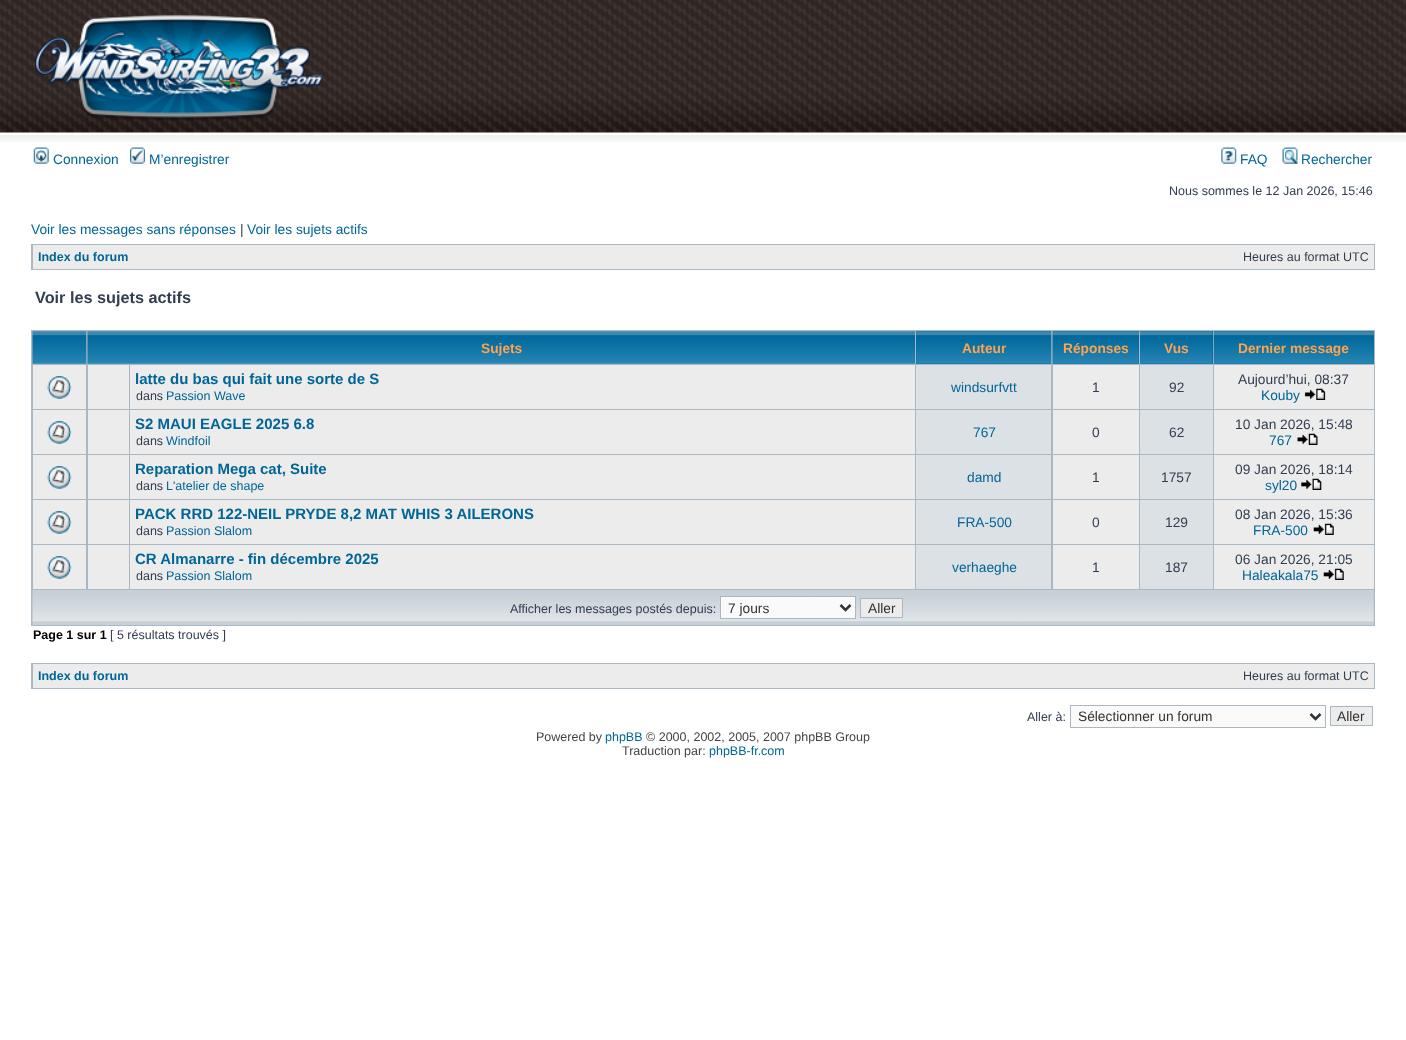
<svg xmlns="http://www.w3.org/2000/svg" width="1406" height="1040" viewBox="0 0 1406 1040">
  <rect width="100%" height="100%" fill="#ffffff"/>
  <image x="0" y="0" width="1406" height="142" href="img1.png"/>
  <image x="35" y="14" width="288" height="107" href="img2.png"/>
  <image x="33" y="147" width="16" height="17" href="img3.png"/>
  <text x="53" y="164" font-family="Liberation Sans" font-size="13.75" fill="#006597">Connexion</text>
  <image x="130" y="147" width="15" height="17" href="img4.png"/>
  <text x="149" y="164" font-family="Liberation Sans" font-size="13.75" fill="#006597">M’enregistrer</text>
  <image x="1221" y="147" width="16" height="17" href="img5.png"/>
  <text x="1240" y="164" font-family="Liberation Sans" font-size="13.75" fill="#006597">FAQ</text>
  <image x="1282" y="147" width="16" height="17" href="img6.png"/>
  <text x="1301" y="164" font-family="Liberation Sans" font-size="13.75" fill="#006597">Rechercher</text>
  <text x="1169" y="195" font-family="Liberation Sans" font-size="12.5" fill="#323d4f">Nous sommes le 12 Jan 2026, 15:46</text>
  <text x="31" y="234" font-family="Liberation Sans" font-size="13.75" fill="#006597">Voir les messages sans réponses</text>
  <text x="240" y="234" font-family="Liberation Sans" font-size="13.75" fill="#323d4f">|</text>
  <text x="247" y="234" font-family="Liberation Sans" font-size="13.75" fill="#006597">Voir les sujets actifs</text>
  <rect x="31" y="244" width="1344" height="26" fill="#a9b8c2"/>
  <rect x="33" y="245" width="1341" height="24" fill="#ececec"/>
  <text x="38" y="261" font-family="Liberation Sans" font-size="12.5" font-weight="bold" fill="#006597">Index du forum</text>
  <text x="1243" y="261" font-family="Liberation Sans" font-size="12.5" fill="#323d4f">Heures au format UTC</text>
  <text x="35" y="303" font-family="Liberation Sans" font-size="16.25" font-weight="bold" fill="#323d4f">Voir les sujets actifs</text>
  <rect x="31" y="330" width="1344" height="296" fill="#a9b8c2"/>
  <image x="32" y="331" width="55" height="33" href="img7.png"/>
  <image x="87" y="331" width="828" height="33" href="img8.png"/>
  <text x="481" y="353" font-family="Liberation Sans" font-size="13.75" font-weight="bold" fill="#ffa34f">Sujets</text>
  <rect x="916" y="331" width="135" height="33" fill="#006699"/>
  <image x="916" y="331" width="136" height="33" href="img9.png"/>
  <text x="962" y="353" font-family="Liberation Sans" font-size="13.75" font-weight="bold" fill="#ffa34f">Auteur</text>
  <rect x="1053" y="331" width="86" height="33" fill="#006699"/>
  <image x="1052" y="331" width="87" height="33" href="img10.png"/>
  <text x="1063" y="353" font-family="Liberation Sans" font-size="13.75" font-weight="bold" fill="#ffa34f">Réponses</text>
  <rect x="1140" y="331" width="73" height="33" fill="#006699"/>
  <image x="1140" y="331" width="73" height="33" href="img11.png"/>
  <text x="1164" y="353" font-family="Liberation Sans" font-size="13.75" font-weight="bold" fill="#ffa34f">Vus</text>
  <rect x="1214" y="331" width="160" height="33" fill="#006699"/>
  <image x="1213" y="331" width="161" height="33" href="img12.png"/>
  <text x="1238" y="353" font-family="Liberation Sans" font-size="13.75" font-weight="bold" fill="#ffa34f">Dernier message</text>
  <rect x="33" y="365" width="53" height="44" fill="#ececec"/>
  <image x="47" y="376" width="25" height="23" href="img13.png"/>
  <rect x="88" y="365" width="41" height="44" fill="#ececec"/>
  <rect x="130" y="365" width="785" height="44" fill="#ececec"/>
  <text x="135" y="384" font-family="Liberation Sans" font-size="15" font-weight="bold" fill="#006597">latte du bas qui fait une sorte de S</text>
  <text x="136" y="400" font-family="Liberation Sans" font-size="12.5" fill="#323d4f">dans</text>
  <text x="166" y="400" font-family="Liberation Sans" font-size="12.5" fill="#006597">Passion Wave</text>
  <rect x="916" y="365" width="135" height="44" fill="#dce1e5"/>
  <text x="951" y="392" font-family="Liberation Sans" font-size="13.75" fill="#006597">windsurfvtt</text>
  <rect x="1053" y="365" width="86" height="44" fill="#ececec"/>
  <text x="1092" y="392" font-family="Liberation Sans" font-size="13.75" fill="#323d4f">1</text>
  <rect x="1140" y="365" width="73" height="44" fill="#dce1e5"/>
  <text x="1169" y="392" font-family="Liberation Sans" font-size="13.75" fill="#323d4f">92</text>
  <rect x="1214" y="365" width="160" height="44" fill="#ececec"/>
  <text x="1238" y="384" font-family="Liberation Sans" font-size="13.75" fill="#323d4f">Aujourd’hui, 08:37</text>
  <text x="1261" y="400" font-family="Liberation Sans" font-size="13.75" fill="#006597">Kouby</text>
  <image x="1304" y="388" width="22" height="12" href="img14.png"/>
  <rect x="33" y="410" width="53" height="44" fill="#ececec"/>
  <image x="47" y="421" width="25" height="23" href="img13.png"/>
  <rect x="88" y="410" width="41" height="44" fill="#ececec"/>
  <rect x="130" y="410" width="785" height="44" fill="#ececec"/>
  <text x="135" y="429" font-family="Liberation Sans" font-size="15" font-weight="bold" fill="#006597">S2 MAUI EAGLE 2025 6.8</text>
  <text x="136" y="445" font-family="Liberation Sans" font-size="12.5" fill="#323d4f">dans</text>
  <text x="166" y="445" font-family="Liberation Sans" font-size="12.5" fill="#006597">Windfoil</text>
  <rect x="916" y="410" width="135" height="44" fill="#dce1e5"/>
  <text x="973" y="437" font-family="Liberation Sans" font-size="13.75" fill="#006597">767</text>
  <rect x="1053" y="410" width="86" height="44" fill="#ececec"/>
  <text x="1092" y="437" font-family="Liberation Sans" font-size="13.75" fill="#323d4f">0</text>
  <rect x="1140" y="410" width="73" height="44" fill="#dce1e5"/>
  <text x="1169" y="437" font-family="Liberation Sans" font-size="13.75" fill="#323d4f">62</text>
  <rect x="1214" y="410" width="160" height="44" fill="#ececec"/>
  <text x="1235" y="429" font-family="Liberation Sans" font-size="13.75" fill="#323d4f">10 Jan 2026, 15:48</text>
  <text x="1269" y="445" font-family="Liberation Sans" font-size="13.75" fill="#006597">767</text>
  <image x="1297" y="433" width="21" height="12" href="img15.png"/>
  <rect x="33" y="455" width="53" height="44" fill="#ececec"/>
  <image x="47" y="466" width="25" height="23" href="img13.png"/>
  <rect x="88" y="455" width="41" height="44" fill="#ececec"/>
  <rect x="130" y="455" width="785" height="44" fill="#ececec"/>
  <text x="135" y="474" font-family="Liberation Sans" font-size="15" font-weight="bold" fill="#006597">Reparation Mega cat, Suite</text>
  <text x="136" y="490" font-family="Liberation Sans" font-size="12.5" fill="#323d4f">dans</text>
  <text x="166" y="490" font-family="Liberation Sans" font-size="12.5" fill="#006597">L'atelier de shape</text>
  <rect x="916" y="455" width="135" height="44" fill="#dce1e5"/>
  <text x="967" y="482" font-family="Liberation Sans" font-size="13.75" fill="#006597">damd</text>
  <rect x="1053" y="455" width="86" height="44" fill="#ececec"/>
  <text x="1092" y="482" font-family="Liberation Sans" font-size="13.75" fill="#323d4f">1</text>
  <rect x="1140" y="455" width="73" height="44" fill="#dce1e5"/>
  <text x="1161" y="482" font-family="Liberation Sans" font-size="13.75" fill="#323d4f">1757</text>
  <rect x="1214" y="455" width="160" height="44" fill="#ececec"/>
  <text x="1235" y="474" font-family="Liberation Sans" font-size="13.75" fill="#323d4f">09 Jan 2026, 18:14</text>
  <text x="1265" y="490" font-family="Liberation Sans" font-size="13.75" fill="#006597">syl20</text>
  <image x="1301" y="478" width="21" height="12" href="img16.png"/>
  <rect x="33" y="500" width="53" height="44" fill="#ececec"/>
  <image x="47" y="511" width="25" height="23" href="img13.png"/>
  <rect x="88" y="500" width="41" height="44" fill="#ececec"/>
  <rect x="130" y="500" width="785" height="44" fill="#ececec"/>
  <text x="135" y="519" font-family="Liberation Sans" font-size="15" font-weight="bold" fill="#006597">PACK RRD 122-NEIL PRYDE 8,2 MAT WHIS 3 AILERONS</text>
  <text x="136" y="535" font-family="Liberation Sans" font-size="12.5" fill="#323d4f">dans</text>
  <text x="166" y="535" font-family="Liberation Sans" font-size="12.5" fill="#006597">Passion Slalom</text>
  <rect x="916" y="500" width="135" height="44" fill="#dce1e5"/>
  <text x="957" y="527" font-family="Liberation Sans" font-size="13.75" fill="#006597">FRA-500</text>
  <rect x="1053" y="500" width="86" height="44" fill="#ececec"/>
  <text x="1092" y="527" font-family="Liberation Sans" font-size="13.75" fill="#323d4f">0</text>
  <rect x="1140" y="500" width="73" height="44" fill="#dce1e5"/>
  <text x="1165" y="527" font-family="Liberation Sans" font-size="13.75" fill="#323d4f">129</text>
  <rect x="1214" y="500" width="160" height="44" fill="#ececec"/>
  <text x="1235" y="519" font-family="Liberation Sans" font-size="13.75" fill="#323d4f">08 Jan 2026, 15:36</text>
  <text x="1253" y="535" font-family="Liberation Sans" font-size="13.75" fill="#006597">FRA-500</text>
  <image x="1313" y="523" width="21" height="12" href="img17.png"/>
  <rect x="33" y="545" width="53" height="44" fill="#ececec"/>
  <image x="47" y="556" width="25" height="23" href="img13.png"/>
  <rect x="88" y="545" width="41" height="44" fill="#ececec"/>
  <rect x="130" y="545" width="785" height="44" fill="#ececec"/>
  <text x="135" y="564" font-family="Liberation Sans" font-size="15" font-weight="bold" fill="#006597">CR Almanarre - fin décembre 2025</text>
  <text x="136" y="580" font-family="Liberation Sans" font-size="12.5" fill="#323d4f">dans</text>
  <text x="166" y="580" font-family="Liberation Sans" font-size="12.5" fill="#006597">Passion Slalom</text>
  <rect x="916" y="545" width="135" height="44" fill="#dce1e5"/>
  <text x="952" y="572" font-family="Liberation Sans" font-size="13.75" fill="#006597">verhaeghe</text>
  <rect x="1053" y="545" width="86" height="44" fill="#ececec"/>
  <text x="1092" y="572" font-family="Liberation Sans" font-size="13.75" fill="#323d4f">1</text>
  <rect x="1140" y="545" width="73" height="44" fill="#dce1e5"/>
  <text x="1165" y="572" font-family="Liberation Sans" font-size="13.75" fill="#323d4f">187</text>
  <rect x="1214" y="545" width="160" height="44" fill="#ececec"/>
  <text x="1235" y="564" font-family="Liberation Sans" font-size="13.75" fill="#323d4f">06 Jan 2026, 21:05</text>
  <text x="1242" y="580" font-family="Liberation Sans" font-size="13.75" fill="#006597">Haleakala75</text>
  <image x="1323" y="568" width="21" height="12" href="img17.png"/>
  <image x="32" y="590" width="1342" height="35" href="img18.png"/>
  <text x="510" y="613" font-family="Liberation Sans" font-size="12.5" fill="#323d4f">Afficher les messages postés depuis:</text>
  <rect x="720.5" y="596.5" width="135" height="22" fill="#fafafa" stroke="#a9b8c2"/>
  <path d="M840.5 605L845.5 610L850.5 605" fill="none" stroke="#333333" stroke-width="2.5"/>
  <text x="728" y="613" font-family="Liberation Sans" font-size="13.75" fill="#333333">7 jours</text>
  <rect x="860.5" y="598.5" width="42" height="19" fill="#ececec" stroke="#a9b8c2"/>
  <text x="868" y="613" font-family="Liberation Sans" font-size="13.75" fill="#333333">Aller</text>
  <text x="33" y="639" font-family="Liberation Sans" font-size="12.5" font-weight="bold" fill="#000000">Page 1 sur 1</text>
  <text x="110" y="639" font-family="Liberation Sans" font-size="12.5" fill="#323d4f">[ 5 résultats trouvés ]</text>
  <rect x="31" y="663" width="1344" height="26" fill="#a9b8c2"/>
  <rect x="33" y="664" width="1341" height="24" fill="#ececec"/>
  <text x="38" y="680" font-family="Liberation Sans" font-size="12.5" font-weight="bold" fill="#006597">Index du forum</text>
  <text x="1243" y="680" font-family="Liberation Sans" font-size="12.5" fill="#323d4f">Heures au format UTC</text>
  <text x="1027" y="721" font-family="Liberation Sans" font-size="12.5" fill="#323d4f">Aller à:</text>
  <rect x="1070.5" y="705.5" width="255" height="22" fill="#fafafa" stroke="#a9b8c2"/>
  <path d="M1310.5 714L1315.5 719L1320.5 714" fill="none" stroke="#333333" stroke-width="2.5"/>
  <text x="1078" y="721" font-family="Liberation Sans" font-size="13.75" fill="#333333">Sélectionner un forum</text>
  <rect x="1330.5" y="706.5" width="42" height="19" fill="#ececec" stroke="#a9b8c2"/>
  <text x="1337" y="721" font-family="Liberation Sans" font-size="13.75" fill="#333333">Aller</text>
  <text x="536" y="741" font-family="Liberation Sans" font-size="12.5" fill="#444444">Powered by</text>
  <text x="605" y="741" font-family="Liberation Sans" font-size="12.5" fill="#006597">phpBB</text>
  <text x="646" y="741" font-family="Liberation Sans" font-size="12.5" fill="#444444">© 2000, 2002, 2005, 2007 phpBB Group</text>
  <text x="622" y="755" font-family="Liberation Sans" font-size="12.5" fill="#444444">Traduction par:</text>
  <text x="709" y="755" font-family="Liberation Sans" font-size="12.5" fill="#006597">phpBB-fr.com</text>
</svg>
